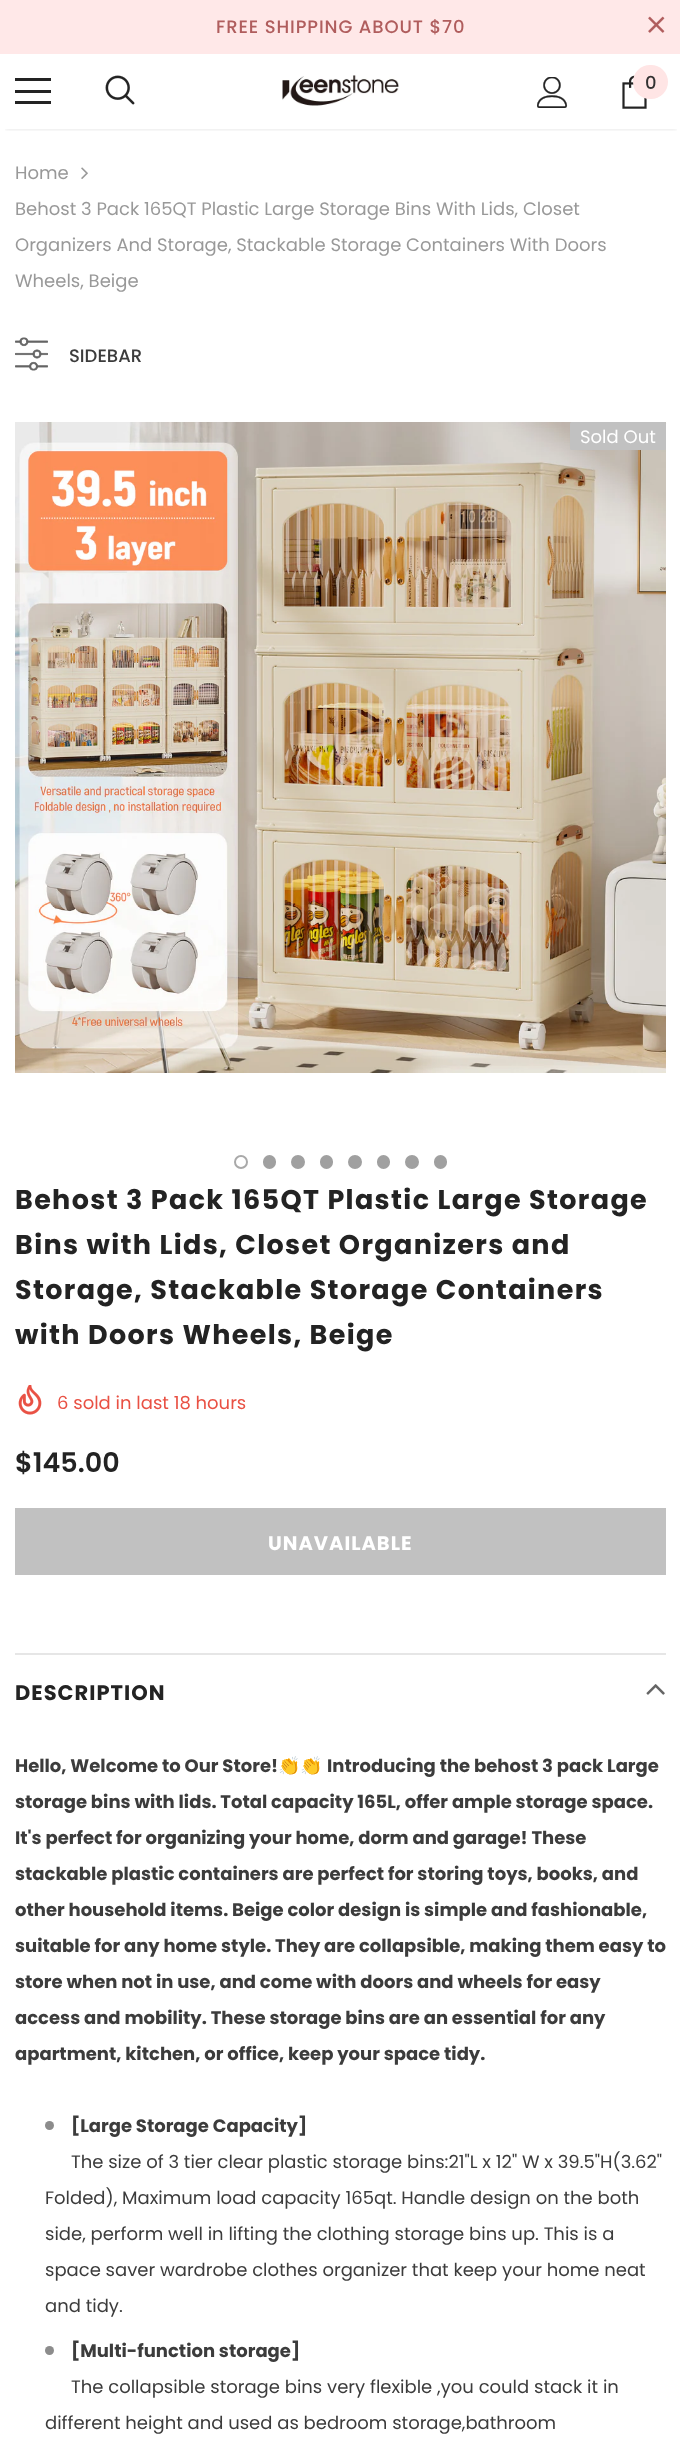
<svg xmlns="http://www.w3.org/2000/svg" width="680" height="2438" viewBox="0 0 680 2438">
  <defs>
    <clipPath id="clip1"><rect x="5" y="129" width="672" height="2"/></clipPath>
    <filter id="blur1" x="-50%" y="-200%" width="200%" height="500%"><feGaussianBlur stdDeviation="2"/></filter>
  </defs>
  <rect width="100%" height="100%" fill="#ffffff"/>
  <rect x="0" y="0" width="680" height="54" fill="#ffe8e8"/>
  <text x="216" y="33" font-family="Poppins" font-size="18" font-weight="500" letter-spacing="0.9" fill="#b05d5d">FREE SHIPPING ABOUT $70</text>
  <image x="648" y="16" width="17" height="17" href="img1.png"/>
  <g clip-path="url(#clip1)">
    <rect x="5" y="63" width="672" height="66" fill="#000000" fill-opacity="0.12" filter="url(#blur1)"/>
  </g>
  <rect x="15" y="78" width="36" height="3" fill="#232323"/>
  <rect x="15" y="90" width="36" height="3" fill="#232323"/>
  <rect x="15" y="101" width="36" height="3" fill="#232323"/>
  <image x="105" y="75" width="30" height="30" href="img2.png"/>
  <image x="282" y="75" width="117" height="31" href="img3.png"/>
  <image x="537" y="77" width="31" height="31" href="img4.png"/>
  <image x="622" y="75" width="25" height="34" href="img5.png"/>
  <rect x="633" y="65" width="35" height="34" rx="17" fill="#ffe5e5"/>
  <text x="645" y="89" font-family="Poppins" font-size="18" font-weight="500" fill="#323232">0</text>
  <text x="15" y="179" font-family="Poppins" font-size="18" fill="#999999">Home</text>
  <image x="81" y="167" width="7" height="12" href="img6.png"/>
  <text x="15" y="215" font-family="Poppins" font-size="18" fill="#999999">Behost 3 Pack 165QT Plastic Large Storage Bins With Lids, Closet</text>
  <text x="15" y="251" font-family="Poppins" font-size="18" fill="#999999">Organizers And Storage, Stackable Storage Containers With Doors</text>
  <text x="15" y="287" font-family="Poppins" font-size="18" fill="#999999">Wheels, Beige</text>
  <image x="15" y="337" width="33" height="34" href="img7.png"/>
  <text x="69" y="362" font-family="Poppins" font-size="18" font-weight="500" fill="#3c3c3c">SIDEBAR</text>
  <image x="15" y="422" width="651" height="651" href="img8.png"/>
  <rect x="570" y="422" width="96" height="28" rx="1.5" fill="#c1c1c1"/>
  <text x="580" y="443" font-family="Poppins" font-size="18" fill="#ffffff">Sold Out</text>
  <circle cx="241" cy="1162" r="6" fill="none" stroke="#a9a9a9" stroke-width="2"/>
  <rect x="264" y="1156" width="11" height="12" rx="5.5" fill="#a0a0a0" stroke="#a0a0a0" stroke-width="2"/>
  <circle cx="298" cy="1162" r="6" fill="#a0a0a0" stroke="#a0a0a0" stroke-width="2"/>
  <rect x="321" y="1156" width="11" height="12" rx="5.5" fill="#a0a0a0" stroke="#a0a0a0" stroke-width="2"/>
  <circle cx="355" cy="1162" r="6" fill="#a0a0a0" stroke="#a0a0a0" stroke-width="2"/>
  <rect x="378" y="1156" width="11" height="12" rx="5.5" fill="#a0a0a0" stroke="#a0a0a0" stroke-width="2"/>
  <circle cx="412" cy="1162" r="6" fill="#a0a0a0" stroke="#a0a0a0" stroke-width="2"/>
  <rect x="435" y="1156" width="11" height="12" rx="5.5" fill="#a0a0a0" stroke="#a0a0a0" stroke-width="2"/>
  <text x="15" y="1209" font-family="Poppins" font-size="27" font-weight="bold" letter-spacing="1.35" fill="#232323">Behost 3 Pack 165QT Plastic Large Storage</text>
  <text x="15" y="1254" font-family="Poppins" font-size="27" font-weight="bold" letter-spacing="1.35" fill="#232323">Bins with Lids, Closet Organizers and</text>
  <text x="15" y="1299" font-family="Poppins" font-size="27" font-weight="bold" letter-spacing="1.35" fill="#232323">Storage, Stackable Storage Containers</text>
  <text x="15" y="1344" font-family="Poppins" font-size="27" font-weight="bold" letter-spacing="1.35" fill="#232323">with Doors Wheels, Beige</text>
  <image x="18" y="1385" width="24" height="30" href="img9.png"/>
  <text x="57" y="1409" font-family="Poppins" font-size="18" fill="#e95144">6 sold in last 18 hours</text>
  <text x="15" y="1472" font-family="Poppins" font-size="27" font-weight="600" fill="#232323">$145.00</text>
  <rect x="15" y="1508" width="651" height="67" fill="#c1c1c1"/>
  <text x="268" y="1550" font-family="Poppins" font-size="19.5" font-weight="bold" letter-spacing="1" fill="#ffffff">UNAVAILABLE</text>
  <rect x="15" y="1653" width="651" height="2" fill="#e6e6e6"/>
  <text x="15" y="1700" font-family="Poppins" font-size="21" font-weight="bold" letter-spacing="1" fill="#232323">DESCRIPTION</text>
  <image x="646" y="1684" width="19" height="11" href="img10.png"/>
  <text x="15" y="1772" font-family="Poppins" font-size="18" font-weight="bold" fill="#3c3c3c">Hello, Welcome to Our Store!</text>
  <text x="278" y="1772" font-family="Noto Color Emoji" font-size="18" font-weight="bold" fill="#3c3c3c">👏👏</text>
  <text x="327" y="1772" font-family="Poppins" font-size="18" font-weight="bold" fill="#3c3c3c">Introducing the behost 3 pack Large</text>
  <text x="15" y="1808" font-family="Poppins" font-size="18" font-weight="bold" fill="#3c3c3c">storage bins with lids. Total capacity 165L, offer ample storage space.</text>
  <text x="15" y="1844" font-family="Poppins" font-size="18" font-weight="bold" fill="#3c3c3c">It's perfect for organizing your home, dorm and garage! These</text>
  <text x="15" y="1880" font-family="Poppins" font-size="18" font-weight="bold" fill="#3c3c3c">stackable plastic containers are perfect for storing toys, books, and</text>
  <text x="15" y="1916" font-family="Poppins" font-size="18" font-weight="bold" fill="#3c3c3c">other household items. Beige color design is simple and fashionable,</text>
  <text x="15" y="1952" font-family="Poppins" font-size="18" font-weight="bold" fill="#3c3c3c">suitable for any home style. They are collapsible, making them easy to</text>
  <text x="15" y="1988" font-family="Poppins" font-size="18" font-weight="bold" fill="#3c3c3c">store when not in use, and come with doors and wheels for easy</text>
  <text x="15" y="2024" font-family="Poppins" font-size="18" font-weight="bold" fill="#3c3c3c">access and mobility. These storage bins are an essential for any</text>
  <text x="15" y="2060" font-family="Poppins" font-size="18" font-weight="bold" fill="#3c3c3c">apartment, kitchen, or office, keep your space tidy.</text>
  <circle cx="49.5" cy="2125.5" r="4.5" fill="#8c8c8c"/>
  <text x="71" y="2132" font-family="Poppins" font-size="18" font-weight="bold" fill="#3c3c3c">[Large Storage Capacity]</text>
  <text x="71" y="2168" font-family="Poppins" font-size="18" fill="#3c3c3c">The size of 3 tier clear plastic storage bins:21"L x 12" W x 39.5"H(3.62"</text>
  <text x="45" y="2204" font-family="Poppins" font-size="18" fill="#3c3c3c">Folded), Maximum load capacity 165qt. Handle design on the both</text>
  <text x="45" y="2240" font-family="Poppins" font-size="18" fill="#3c3c3c">side, perform well in lifting the clothing storage bins up. This is a</text>
  <text x="45" y="2276" font-family="Poppins" font-size="18" fill="#3c3c3c">space saver wardrobe clothes organizer that keep your home neat</text>
  <text x="45" y="2312" font-family="Poppins" font-size="18" fill="#3c3c3c">and tidy.</text>
  <circle cx="49.5" cy="2350.5" r="4.5" fill="#8c8c8c"/>
  <text x="71" y="2357" font-family="Poppins" font-size="18" font-weight="bold" fill="#3c3c3c">[Multi-function storage]</text>
  <text x="71" y="2393" font-family="Poppins" font-size="18" fill="#3c3c3c">The collapsible storage bins very flexible ,you could stack it in</text>
  <text x="45" y="2429" font-family="Poppins" font-size="18" fill="#3c3c3c">different height and used as bedroom storage,bathroom</text>
</svg>
